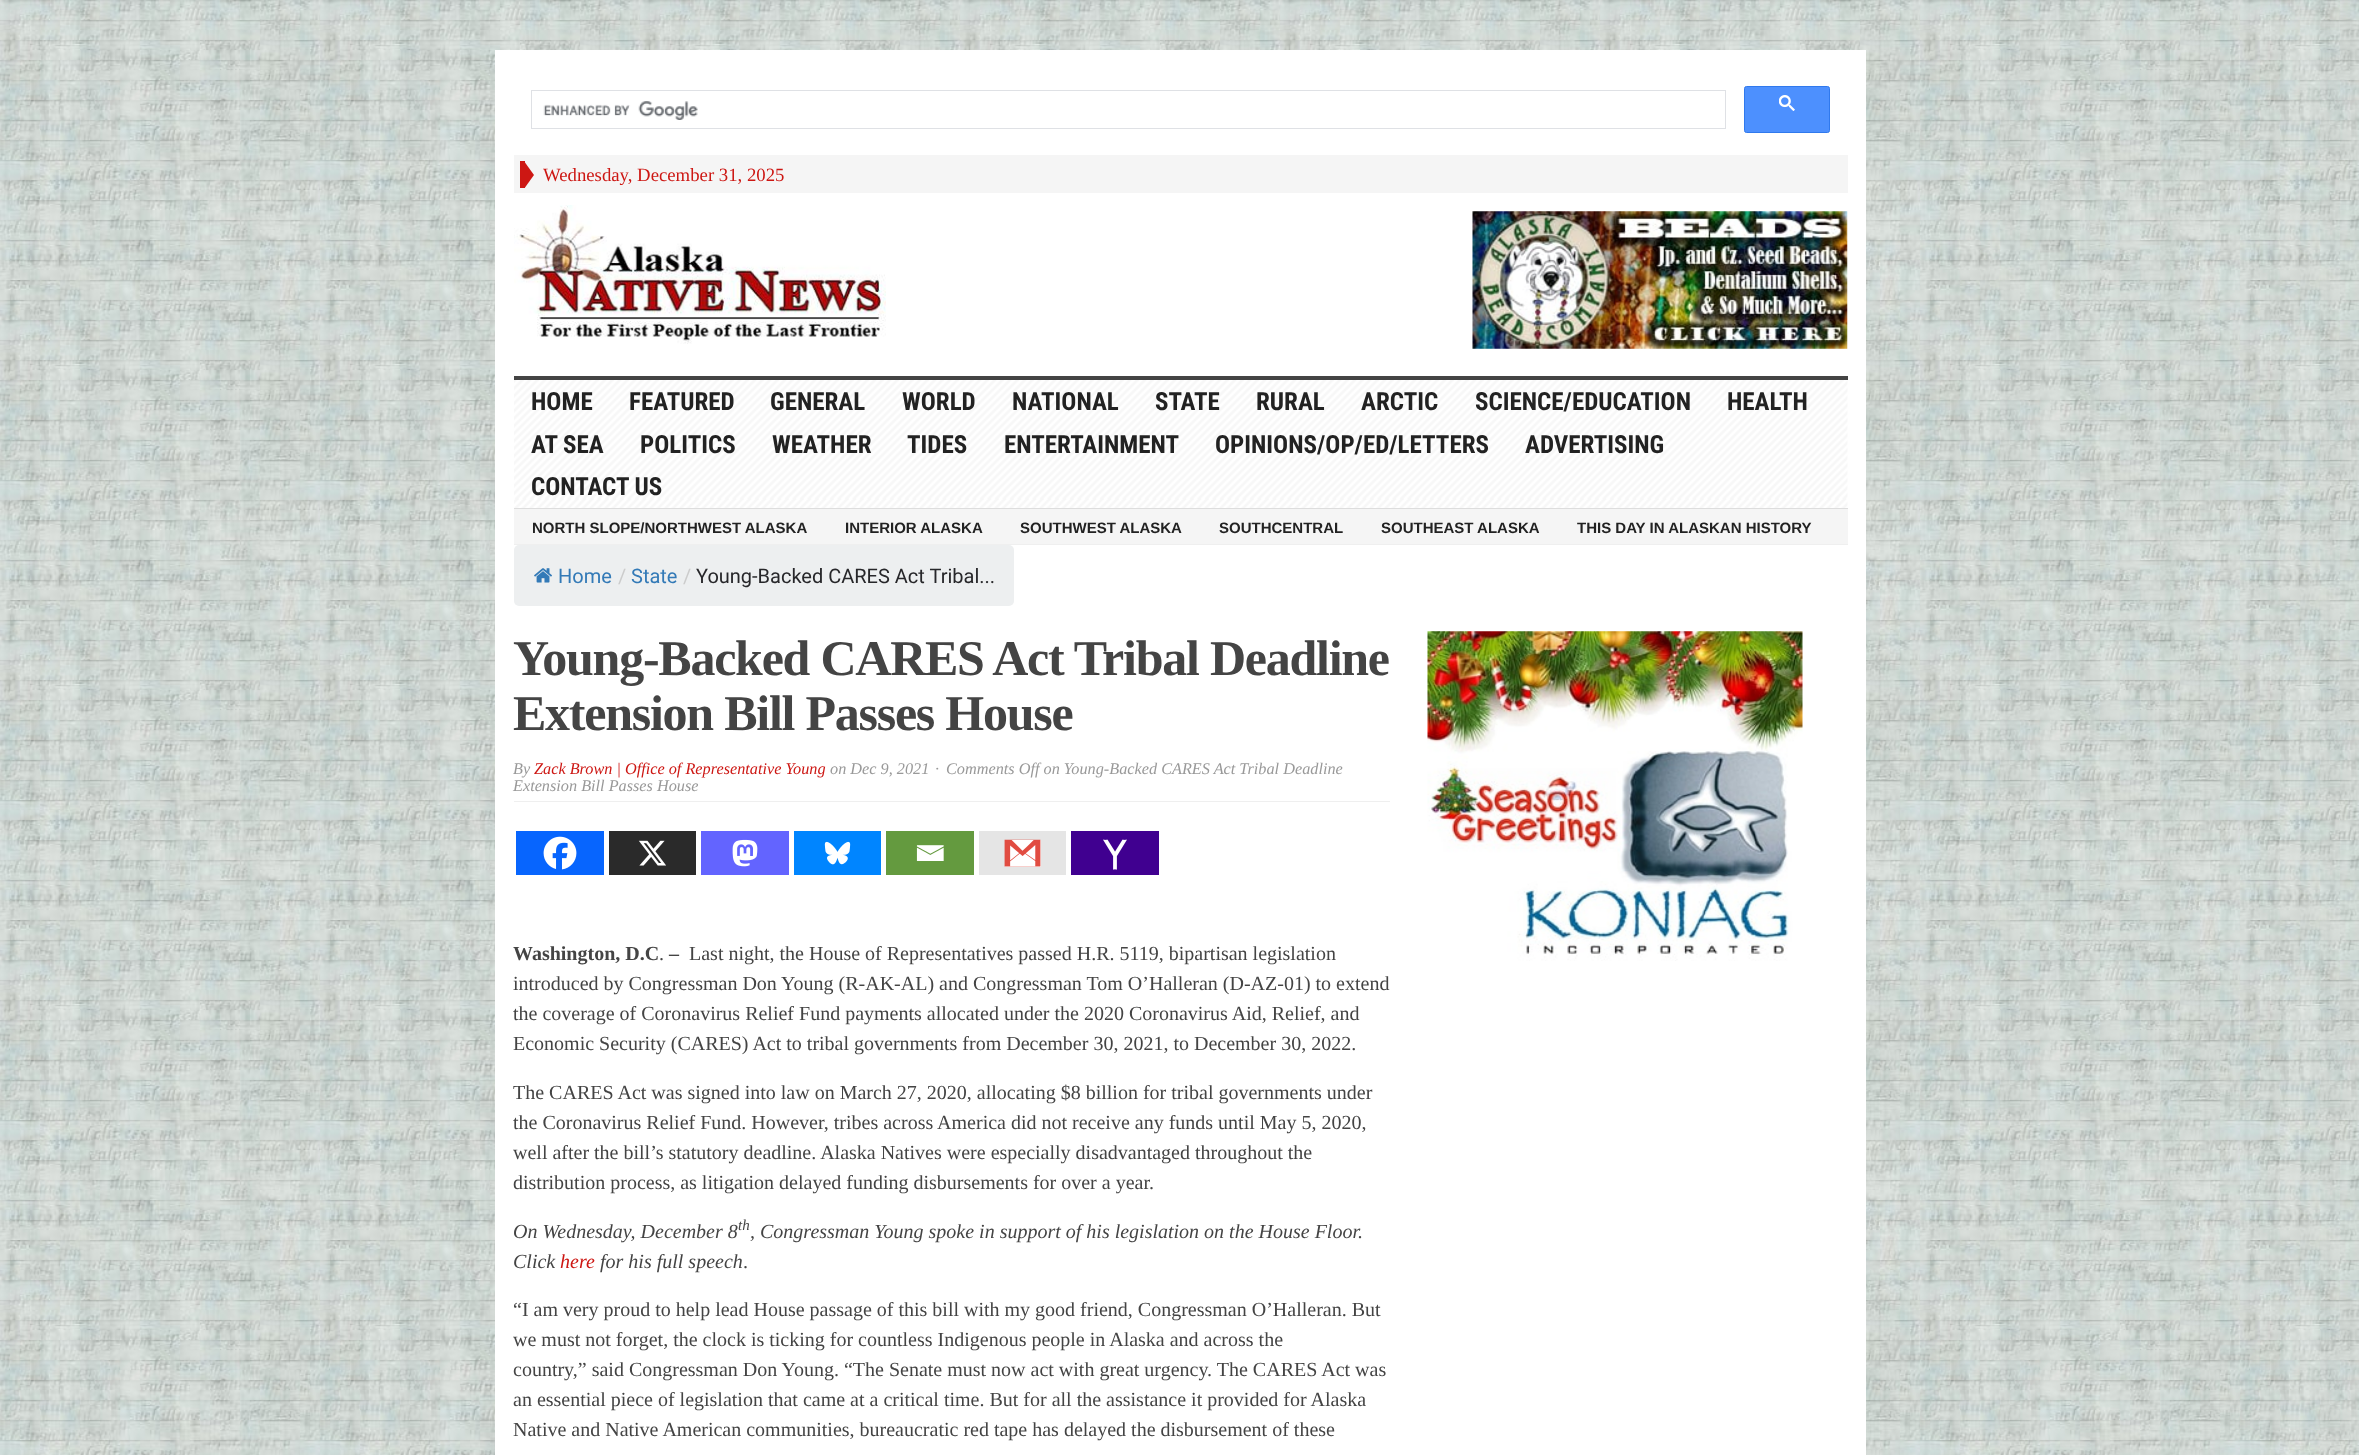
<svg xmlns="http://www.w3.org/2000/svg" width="2359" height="1455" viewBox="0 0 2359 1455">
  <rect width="100%" height="100%" fill="#ffffff"/>
  <image x="0" y="0" width="2359" height="1455" href="img1.png"/>
  <rect x="495" y="50" width="1371" height="1405" fill="#ffffff"/>
  <rect x="531.5" y="90.5" width="1194" height="38" fill="none" stroke="#dfe1e5"/>
  <image x="543" y="101" width="155" height="19" href="img2.png"/>
  <rect x="1744.5" y="86.5" width="85" height="46" rx="2" fill="#4d90fe" stroke="#3079ed"/>
  <image x="1779" y="95" width="16" height="16" href="img3.png"/>
  <rect x="514" y="155" width="1334" height="38" fill="#f5f5f5"/>
  <rect x="520" y="161" width="5" height="27" fill="#cd1713"/>
  <path d="M525 187.5V162.5L534 175Z" fill="#cd1713"/>
  <text x="543" y="181" font-family="Liberation Serif" font-size="18.75" fill="#cd1713">Wednesday, December 31, 2025</text>
  <rect x="514" y="376" width="1334" height="4" fill="#444444"/>
  <image x="514" y="205" width="372" height="139" href="img4.png"/>
  <image x="1472" y="211" width="376" height="138" href="img5.png"/>
  <image x="514" y="380" width="1334" height="128" href="img6.png"/>
  <rect x="514" y="508" width="1334" height="1" fill="#dddddd"/>
  <text x="531" y="410" font-family="Roboto Condensed" font-size="25" font-weight="bold" fill="#222222">HOME</text>
  <text x="629" y="410" font-family="Roboto Condensed" font-size="25" font-weight="bold" fill="#222222">FEATURED</text>
  <text x="770" y="410" font-family="Roboto Condensed" font-size="25" font-weight="bold" fill="#222222">GENERAL</text>
  <text x="902" y="410" font-family="Roboto Condensed" font-size="25" font-weight="bold" fill="#222222">WORLD</text>
  <text x="1012" y="410" font-family="Roboto Condensed" font-size="25" font-weight="bold" fill="#222222">NATIONAL</text>
  <text x="1155" y="410" font-family="Roboto Condensed" font-size="25" font-weight="bold" fill="#222222">STATE</text>
  <text x="1256" y="410" font-family="Roboto Condensed" font-size="25" font-weight="bold" fill="#222222">RURAL</text>
  <text x="1361" y="410" font-family="Roboto Condensed" font-size="25" font-weight="bold" fill="#222222">ARCTIC</text>
  <text x="1475" y="410" font-family="Roboto Condensed" font-size="25" font-weight="bold" fill="#222222">SCIENCE/EDUCATION</text>
  <text x="1727" y="410" font-family="Roboto Condensed" font-size="25" font-weight="bold" fill="#222222">HEALTH</text>
  <text x="531" y="453" font-family="Roboto Condensed" font-size="25" font-weight="bold" fill="#222222">AT SEA</text>
  <text x="640" y="453" font-family="Roboto Condensed" font-size="25" font-weight="bold" fill="#222222">POLITICS</text>
  <text x="772" y="453" font-family="Roboto Condensed" font-size="25" font-weight="bold" fill="#222222">WEATHER</text>
  <text x="907" y="453" font-family="Roboto Condensed" font-size="25" font-weight="bold" fill="#222222">TIDES</text>
  <text x="1004" y="453" font-family="Roboto Condensed" font-size="25" font-weight="bold" fill="#222222">ENTERTAINMENT</text>
  <text x="1215" y="453" font-family="Roboto Condensed" font-size="25" font-weight="bold" fill="#222222">OPINIONS/OP/ED/LETTERS</text>
  <text x="1525" y="453" font-family="Roboto Condensed" font-size="25" font-weight="bold" fill="#222222">ADVERTISING</text>
  <text x="531" y="495" font-family="Roboto Condensed" font-size="25" font-weight="bold" fill="#222222">CONTACT US</text>
  <rect x="514" y="509" width="1334" height="35" fill="#f5f5f5"/>
  <rect x="514" y="544" width="1334" height="1" fill="#efefef"/>
  <text x="532" y="533" font-family="Liberation Sans" font-size="15" font-weight="bold" fill="#222222">NORTH SLOPE/NORTHWEST ALASKA</text>
  <text x="845" y="533" font-family="Liberation Sans" font-size="15" font-weight="bold" fill="#222222">INTERIOR ALASKA</text>
  <text x="1020" y="533" font-family="Liberation Sans" font-size="15" font-weight="bold" fill="#222222">SOUTHWEST ALASKA</text>
  <text x="1219" y="533" font-family="Liberation Sans" font-size="15" font-weight="bold" fill="#222222">SOUTHCENTRAL</text>
  <text x="1381" y="533" font-family="Liberation Sans" font-size="15" font-weight="bold" fill="#222222">SOUTHEAST ALASKA</text>
  <text x="1577" y="533" font-family="Liberation Sans" font-size="15" font-weight="bold" fill="#222222">THIS DAY IN ALASKAN HISTORY</text>
  <rect x="514" y="545" width="500" height="61" rx="5" fill="#edeff0"/>
  <image x="534" y="568" width="18" height="15" href="img7.png"/>
  <text x="558" y="583" font-family="Roboto" font-size="20" fill="#337ab7">Home</text>
  <text x="618" y="583" font-family="Roboto" font-size="20" fill="#cccccc">/</text>
  <text x="631" y="583" font-family="Roboto" font-size="20" fill="#337ab7">State</text>
  <text x="683" y="583" font-family="Roboto" font-size="20" fill="#cccccc">/</text>
  <text x="696" y="583" font-family="Roboto" font-size="20" fill="#27272a">Young-Backed CARES Act Tribal...</text>
  <rect x="514" y="801" width="876" height="1" fill="#efefef"/>
  <text x="513" y="675" font-family="Liberation Serif" font-size="50" font-weight="bold" letter-spacing="-1.25" fill="#444444">Young-Backed CARES Act Tribal Deadline</text>
  <text x="513" y="730" font-family="Liberation Serif" font-size="50" font-weight="bold" letter-spacing="-1.25" fill="#444444">Extension Bill Passes House</text>
  <text x="513" y="774" font-family="Liberation Serif" font-size="16.25" font-style="italic" fill="#999999">By</text>
  <text x="534" y="774" font-family="Liberation Serif" font-size="16.25" font-style="italic" fill="#cd1713">Zack Brown | Office of Representative Young</text>
  <text x="830" y="774" font-family="Liberation Serif" font-size="16.25" font-style="italic" fill="#999999">on Dec 9, 2021</text>
  <text x="935" y="774" font-family="Liberation Serif" font-size="16.25" font-style="italic" fill="#999999">·</text>
  <text x="946" y="774" font-family="Liberation Serif" font-size="16.25" font-style="italic" fill="#999999">Comments Off on Young-Backed CARES Act Tribal Deadline</text>
  <text x="513" y="791" font-family="Liberation Serif" font-size="16.25" font-style="italic" fill="#999999">Extension Bill Passes House</text>
  <rect x="516" y="831" width="88" height="44" fill="#0765fe"/>
  <image x="543" y="836" width="34" height="34" href="img8.png"/>
  <rect x="609" y="831" width="87" height="44" fill="#2a2a2a"/>
  <image x="638" y="840" width="28" height="26" href="img9.png"/>
  <rect x="701" y="831" width="88" height="44" fill="#6364ff"/>
  <image x="732" y="839" width="26" height="28" href="img10.png"/>
  <rect x="794" y="831" width="87" height="44" fill="#0085ff"/>
  <image x="824" y="841" width="27" height="24" href="img11.png"/>
  <rect x="886" y="831" width="88" height="44" fill="#649a3f"/>
  <image x="916" y="845" width="28" height="16" href="img12.png"/>
  <rect x="979" y="831" width="87" height="44" fill="#e5e5e5"/>
  <image x="1004" y="839" width="37" height="28" href="img13.png"/>
  <rect x="1071" y="831" width="88" height="44" fill="#400090"/>
  <image x="1103" y="839" width="24" height="31" href="img14.png"/>
  <text x="513" y="960" font-family="Liberation Serif" font-size="20" font-weight="bold" fill="#444444">Washington, D.C</text>
  <text x="669" y="960" font-family="Liberation Serif" font-size="20" font-weight="bold" fill="#444444">–</text>
  <text x="689" y="960" font-family="Liberation Serif" font-size="20" fill="#444444">Last night, the House of Representatives passed H.R. 5119, bipartisan legislation</text>
  <text x="659" y="960" font-family="Liberation Serif" font-size="20" fill="#444444">.</text>
  <text x="513" y="990" font-family="Liberation Serif" font-size="20" fill="#444444">introduced by Congressman Don Young (R-AK-AL) and Congressman Tom O’Halleran (D-AZ-01) to extend</text>
  <text x="513" y="1020" font-family="Liberation Serif" font-size="20" fill="#444444">the coverage of Coronavirus Relief Fund payments allocated under the 2020 Coronavirus Aid, Relief, and</text>
  <text x="513" y="1050" font-family="Liberation Serif" font-size="20" fill="#444444">Economic Security (CARES) Act to tribal governments from December 30, 2021, to December 30, 2022.</text>
  <text x="513" y="1099" font-family="Liberation Serif" font-size="20" fill="#444444">The CARES Act was signed into law on March 27, 2020, allocating $8 billion for tribal governments under</text>
  <text x="513" y="1129" font-family="Liberation Serif" font-size="20" fill="#444444">the Coronavirus Relief Fund. However, tribes across America did not receive any funds until May 5, 2020,</text>
  <text x="513" y="1159" font-family="Liberation Serif" font-size="20" fill="#444444">well after the bill’s statutory deadline. Alaska Natives were especially disadvantaged throughout the</text>
  <text x="513" y="1189" font-family="Liberation Serif" font-size="20" fill="#444444">distribution process, as litigation delayed funding disbursements for over a year.</text>
  <text x="513" y="1238" font-family="Liberation Serif" font-size="20" font-style="italic" fill="#444444">On Wednesday, December 8</text>
  <text x="738" y="1230" font-family="Liberation Serif" font-size="15" font-style="italic" fill="#444444">th</text>
  <text x="750" y="1238" font-family="Liberation Serif" font-size="20" font-style="italic" fill="#444444">, Congressman Young spoke in support of his legislation on the House Floor.</text>
  <text x="513" y="1268" font-family="Liberation Serif" font-size="20" font-style="italic" fill="#444444">Click</text>
  <text x="560" y="1268" font-family="Liberation Serif" font-size="20" font-style="italic" fill="#cd1713">here</text>
  <text x="600" y="1268" font-family="Liberation Serif" font-size="20" font-style="italic" fill="#444444">for his full speech</text>
  <text x="743" y="1268" font-family="Liberation Serif" font-size="20" fill="#444444">.</text>
  <text x="513" y="1316" font-family="Liberation Serif" font-size="20" fill="#444444">“I am very proud to help lead House passage of this bill with my good friend, Congressman O’Halleran. But</text>
  <text x="513" y="1346" font-family="Liberation Serif" font-size="20" fill="#444444">we must not forget, the clock is ticking for countless Indigenous people in Alaska and across the</text>
  <text x="513" y="1376" font-family="Liberation Serif" font-size="20" fill="#444444">country,” said Congressman Don Young. “The Senate must now act with great urgency. The CARES Act was</text>
  <text x="513" y="1406" font-family="Liberation Serif" font-size="20" fill="#444444">an essential piece of legislation that came at a critical time. But for all the assistance it provided for Alaska</text>
  <text x="513" y="1436" font-family="Liberation Serif" font-size="20" fill="#444444">Native and Native American communities, bureaucratic red tape has delayed the disbursement of these</text>
  <image x="1427" y="631" width="376" height="330" href="img15.png"/>
</svg>
